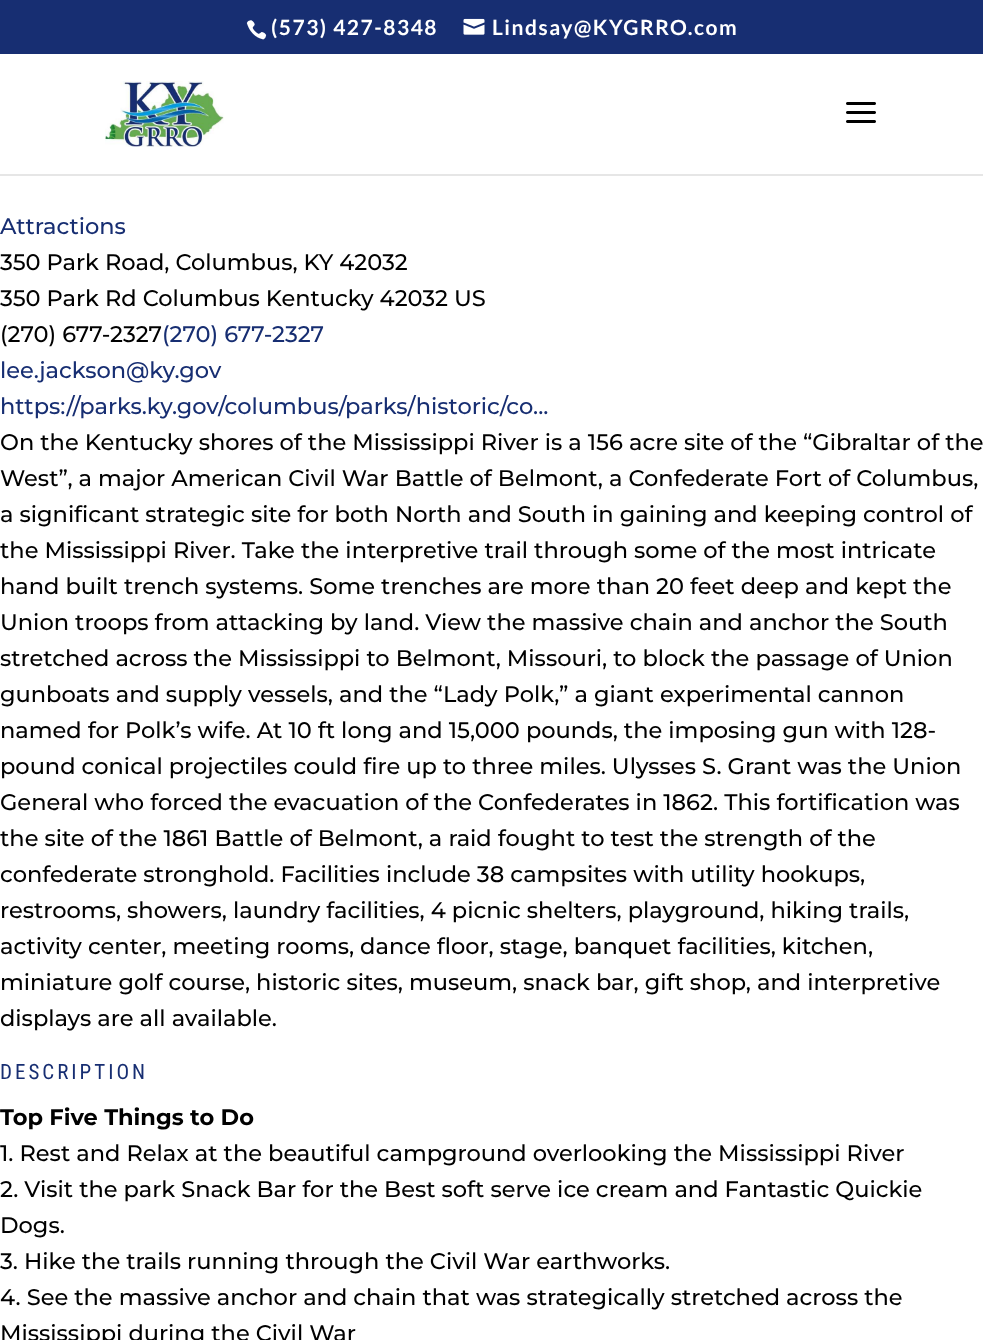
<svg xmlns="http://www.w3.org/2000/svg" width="983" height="1340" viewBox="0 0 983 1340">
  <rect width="100%" height="100%" fill="#ffffff"/>
  <rect x="0" y="0" width="983" height="54" fill="#172e72"/>
  <image x="246" y="20" width="21" height="20" href="img1.png"/>
  <text x="271" y="35" font-family="Lato" font-size="21" font-weight="bold" letter-spacing="1.5" fill="#ffffff">(573) 427-8348</text>
  <image x="463" y="18" width="22" height="17" href="img2.png"/>
  <text x="492" y="35" font-family="Lato" font-size="21" font-weight="bold" letter-spacing="1.5" fill="#ffffff">Lindsay@KYGRRO.com</text>
  <rect x="0" y="174" width="983" height="2" fill="#e6e6e6"/>
  <image x="105" y="81" width="119" height="66" href="img3.png"/>
  <image x="846" y="102" width="30" height="21" href="img4.png"/>
  <text x="0" y="234" font-family="Montserrat" font-size="22.5" font-weight="100" fill="#172e72">Attractions</text>
  <text x="0" y="270" font-family="Montserrat" font-size="22.5" font-weight="100" fill="#000000">350 Park Road, Columbus, KY 42032</text>
  <text x="0" y="306" font-family="Montserrat" font-size="22.5" font-weight="100" fill="#000000">350 Park Rd Columbus Kentucky 42032 US</text>
  <text x="0" y="342" font-family="Montserrat" font-size="22.5" font-weight="100" fill="#000000">(270) 677-2327</text>
  <text x="162" y="342" font-family="Montserrat" font-size="22.5" font-weight="100" fill="#172e72">(270) 677-2327</text>
  <text x="0" y="378" font-family="Montserrat" font-size="22.5" font-weight="100" fill="#172e72">lee.jackson@ky.gov</text>
  <text x="0" y="414" font-family="Montserrat" font-size="22.5" font-weight="100" fill="#172e72">https://parks.ky.gov/columbus/parks/historic/co...</text>
  <text x="0" y="450" font-family="Montserrat" font-size="22.5" font-weight="100" fill="#000000">On the Kentucky shores of the Mississippi River is a 156 acre site of the “Gibraltar of the</text>
  <text x="0" y="486" font-family="Montserrat" font-size="22.5" font-weight="100" fill="#000000">West”, a major American Civil War Battle of Belmont, a Confederate Fort of Columbus,</text>
  <text x="0" y="522" font-family="Montserrat" font-size="22.5" font-weight="100" fill="#000000">a significant strategic site for both North and South in gaining and keeping control of</text>
  <text x="0" y="558" font-family="Montserrat" font-size="22.5" font-weight="100" fill="#000000">the Mississippi River. Take the interpretive trail through some of the most intricate</text>
  <text x="0" y="594" font-family="Montserrat" font-size="22.5" font-weight="100" fill="#000000">hand built trench systems. Some trenches are more than 20 feet deep and kept the</text>
  <text x="0" y="630" font-family="Montserrat" font-size="22.5" font-weight="100" fill="#000000">Union troops from attacking by land. View the massive chain and anchor the South</text>
  <text x="0" y="666" font-family="Montserrat" font-size="22.5" font-weight="100" fill="#000000">stretched across the Mississippi to Belmont, Missouri, to block the passage of Union</text>
  <text x="0" y="702" font-family="Montserrat" font-size="22.5" font-weight="100" fill="#000000">gunboats and supply vessels, and the “Lady Polk,” a giant experimental cannon</text>
  <text x="0" y="738" font-family="Montserrat" font-size="22.5" font-weight="100" fill="#000000">named for Polk’s wife. At 10 ft long and 15,000 pounds, the imposing gun with 128-</text>
  <text x="0" y="774" font-family="Montserrat" font-size="22.5" font-weight="100" fill="#000000">pound conical projectiles could fire up to three miles. Ulysses S. Grant was the Union</text>
  <text x="0" y="810" font-family="Montserrat" font-size="22.5" font-weight="100" fill="#000000">General who forced the evacuation of the Confederates in 1862. This fortification was</text>
  <text x="0" y="846" font-family="Montserrat" font-size="22.5" font-weight="100" fill="#000000">the site of the 1861 Battle of Belmont, a raid fought to test the strength of the</text>
  <text x="0" y="882" font-family="Montserrat" font-size="22.5" font-weight="100" fill="#000000">confederate stronghold. Facilities include 38 campsites with utility hookups,</text>
  <text x="0" y="918" font-family="Montserrat" font-size="22.5" font-weight="100" fill="#000000">restrooms, showers, laundry facilities, 4 picnic shelters, playground, hiking trails,</text>
  <text x="0" y="954" font-family="Montserrat" font-size="22.5" font-weight="100" fill="#000000">activity center, meeting rooms, dance floor, stage, banquet facilities, kitchen,</text>
  <text x="0" y="990" font-family="Montserrat" font-size="22.5" font-weight="100" fill="#000000">miniature golf course, historic sites, museum, snack bar, gift shop, and interpretive</text>
  <text x="0" y="1026" font-family="Montserrat" font-size="22.5" font-weight="100" fill="#000000">displays are all available.</text>
  <text x="0" y="1079" font-family="Roboto Condensed" font-size="21" letter-spacing="3" fill="#172e72">DESCRIPTION</text>
  <text x="0" y="1125" font-family="'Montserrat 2'" font-size="22.5" font-weight="100" fill="#000000">Top Five Things to Do</text>
  <text x="0" y="1161" font-family="Montserrat" font-size="22.5" font-weight="100" fill="#000000">1. Rest and Relax at the beautiful campground overlooking the Mississippi River</text>
  <text x="0" y="1197" font-family="Montserrat" font-size="22.5" font-weight="100" fill="#000000">2. Visit the park Snack Bar for the Best soft serve ice cream and Fantastic Quickie</text>
  <text x="0" y="1233" font-family="Montserrat" font-size="22.5" font-weight="100" fill="#000000">Dogs.</text>
  <text x="0" y="1269" font-family="Montserrat" font-size="22.5" font-weight="100" fill="#000000">3. Hike the trails running through the Civil War earthworks.</text>
  <text x="0" y="1305" font-family="Montserrat" font-size="22.5" font-weight="100" fill="#000000">4. See the massive anchor and chain that was strategically stretched across the</text>
  <text x="0" y="1341" font-family="Montserrat" font-size="22.5" font-weight="100" fill="#000000">Mississippi during the Civil War</text>
</svg>
